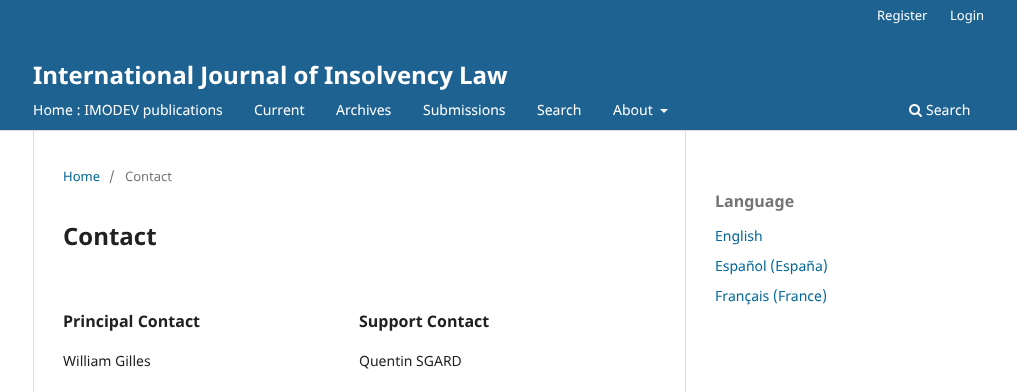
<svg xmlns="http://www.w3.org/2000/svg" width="1017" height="392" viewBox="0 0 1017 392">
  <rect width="100%" height="100%" fill="#ffffff"/>
  <rect x="0" y="0" width="1017" height="130" fill="#1e6292"/>
  <rect x="0" y="130" width="1017" height="1" fill="#dddddd"/>
  <text x="877" y="20" font-family="Noto Sans" font-size="13" fill="#ffffff">Register</text>
  <text x="950" y="20" font-family="Noto Sans" font-size="13" fill="#ffffff">Login</text>
  <text x="33" y="115" font-family="Noto Sans" font-size="14" fill="#ffffff">Home : IMODEV publications</text>
  <text x="254" y="115" font-family="Noto Sans" font-size="14" fill="#ffffff">Current</text>
  <text x="336" y="115" font-family="Noto Sans" font-size="14" fill="#ffffff">Archives</text>
  <text x="423" y="115" font-family="Noto Sans" font-size="14" fill="#ffffff">Submissions</text>
  <text x="537" y="115" font-family="Noto Sans" font-size="14" fill="#ffffff">Search</text>
  <text x="613" y="115" font-family="Noto Sans" font-size="14" fill="#ffffff">About</text>
  <path d="M660 109H668L664 113Z" fill="#ffffff"/>
  <image x="909" y="104" width="13" height="13" href="img1.png"/>
  <text x="926" y="115" font-family="Noto Sans" font-size="14" fill="#ffffff">Search</text>
  <text x="33" y="84" font-family="Noto Sans" font-size="24" font-weight="bold" fill="#ffffff">International Journal of Insolvency Law</text>
  <rect x="33" y="131" width="1" height="261" fill="#dddddd"/>
  <text x="63" y="181" font-family="Noto Sans" font-size="13" fill="#006798">Home</text>
  <text x="109" y="181" font-family="Noto Sans" font-size="13" fill="#757575">/</text>
  <text x="125" y="181" font-family="Noto Sans" font-size="13" fill="#757575">Contact</text>
  <text x="63" y="245" font-family="Noto Sans" font-size="24" font-weight="bold" fill="#212121">Contact</text>
  <text x="63" y="327" font-family="Noto Sans" font-size="16" font-weight="bold" fill="#212121">Principal Contact</text>
  <text x="63" y="366" font-family="Noto Sans" font-size="14" fill="#212121">William Gilles</text>
  <text x="359" y="327" font-family="Noto Sans" font-size="16" font-weight="bold" fill="#212121">Support Contact</text>
  <text x="359" y="366" font-family="Noto Sans" font-size="14" fill="#212121">Quentin SGARD</text>
  <rect x="685" y="131" width="1" height="261" fill="#dddddd"/>
  <text x="715" y="207" font-family="Noto Sans" font-size="16" font-weight="bold" fill="#757575">Language</text>
  <text x="715" y="241" font-family="Noto Sans" font-size="14" fill="#006798">English</text>
  <text x="715" y="271" font-family="Noto Sans" font-size="14" fill="#006798">Español (España)</text>
  <text x="715" y="301" font-family="Noto Sans" font-size="14" fill="#006798">Français (France)</text>
</svg>
